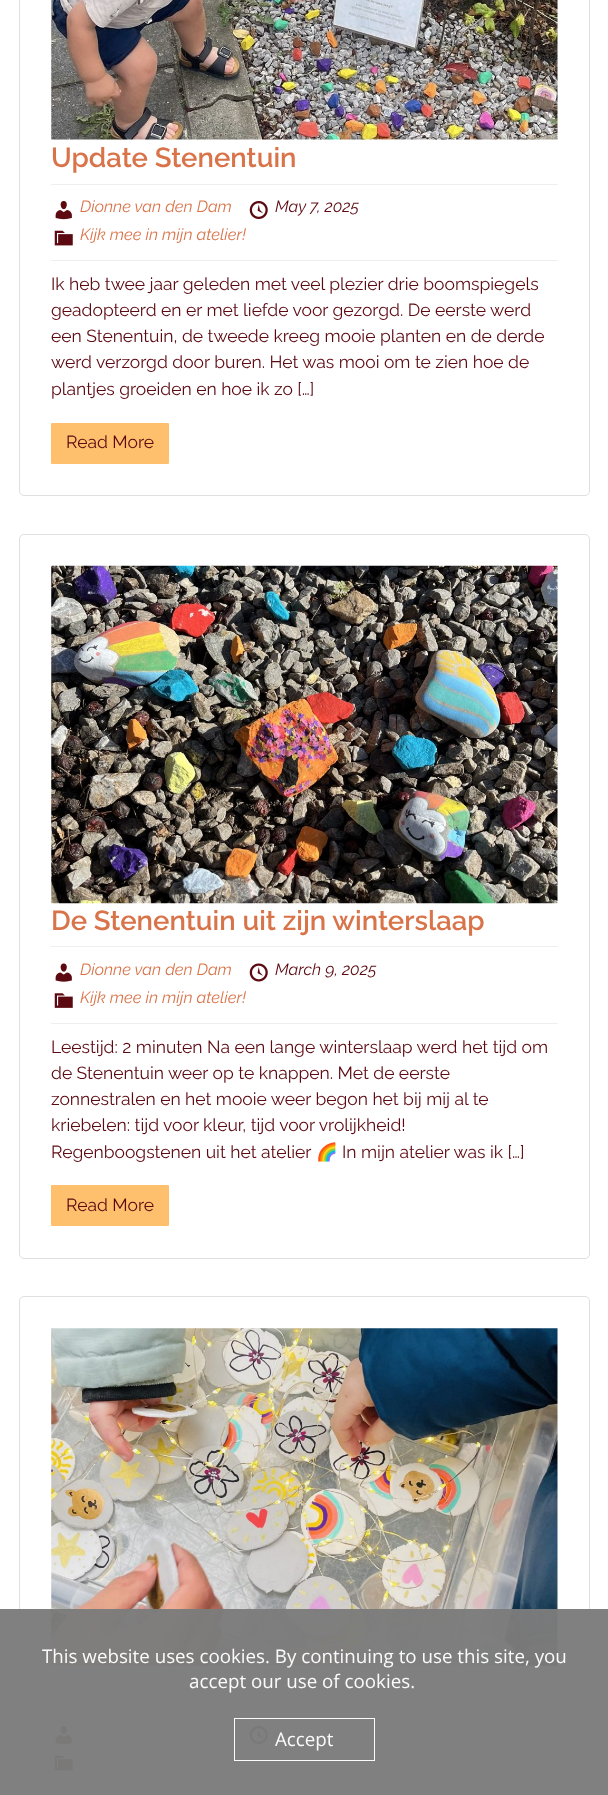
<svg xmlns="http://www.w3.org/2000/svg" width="608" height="1795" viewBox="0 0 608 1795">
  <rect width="100%" height="100%" fill="#ffffff"/>
  <rect x="19.5" y="-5.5" width="570" height="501" rx="4.5" fill="none" stroke="#dfdfdf"/>
  <image x="51" y="0" width="507" height="140" href="img1.png"/>
  <text x="51" y="167" font-family="Raleway" font-size="27.5" font-weight="600" fill="#d9744a">Update Stenentuin</text>
  <rect x="51" y="184" width="507" height="1" fill="#eeeeee"/>
  <rect x="51" y="260" width="507" height="1" fill="#eeeeee"/>
  <image x="55" y="201" width="17" height="19" href="img2.png"/>
  <text x="80" y="212" font-family="Raleway" font-size="16.25" font-style="italic" fill="#d9744a">Dionne van den Dam</text>
  <image x="249" y="201" width="19" height="18" href="img3.png"/>
  <text x="275" y="212" font-family="Raleway" font-size="16.25" font-style="italic" fill="#5c0911">May 7, 2025</text>
  <image x="54" y="230" width="19" height="16" href="img4.png"/>
  <text x="80" y="240" font-family="Raleway" font-size="16.25" font-style="italic" fill="#d9744a">Kijk mee in mijn atelier!</text>
  <text x="51" y="290" font-family="Raleway" font-size="17.5" fill="#5c0911">Ik heb twee jaar geleden met veel plezier drie boomspiegels</text>
  <text x="51" y="316" font-family="Raleway" font-size="17.5" fill="#5c0911">geadopteerd en er met liefde voor gezorgd. De eerste werd</text>
  <text x="51" y="342" font-family="Raleway" font-size="17.5" fill="#5c0911">een Stenentuin, de tweede kreeg mooie planten en de derde</text>
  <text x="51" y="368" font-family="Raleway" font-size="17.5" fill="#5c0911">werd verzorgd door buren. Het was mooi om te zien hoe de</text>
  <text x="51" y="395" font-family="Raleway" font-size="17.5" fill="#5c0911">plantjes groeiden en hoe ik zo […]</text>
  <rect x="51" y="423" width="118" height="41" rx="1" fill="#fec06d"/>
  <text x="66" y="448" font-family="Raleway" font-size="17.5" fill="#5c0911">Read More</text>
  <rect x="19.5" y="534.5" width="570" height="724" rx="4.5" fill="none" stroke="#dfdfdf"/>
  <image x="51" y="565" width="507" height="339" href="img5.png"/>
  <text x="51" y="930" font-family="Raleway" font-size="27.5" font-weight="600" fill="#d9744a">De Stenentuin uit zijn winterslaap</text>
  <rect x="51" y="946" width="507" height="1" fill="#eeeeee"/>
  <rect x="51" y="1023" width="507" height="1" fill="#eeeeee"/>
  <image x="55" y="963" width="17" height="19" href="img6.png"/>
  <text x="80" y="975" font-family="Raleway" font-size="16.25" font-style="italic" fill="#d9744a">Dionne van den Dam</text>
  <image x="249" y="963" width="19" height="19" href="img7.png"/>
  <text x="275" y="975" font-family="Raleway" font-size="16.25" font-style="italic" fill="#5c0911">March 9, 2025</text>
  <image x="54" y="993" width="19" height="15" href="img8.png"/>
  <text x="80" y="1003" font-family="Raleway" font-size="16.25" font-style="italic" fill="#d9744a">Kijk mee in mijn atelier!</text>
  <text x="51" y="1053" font-family="Raleway" font-size="17.5" fill="#5c0911">Leestijd: 2 minuten Na een lange winterslaap werd het tijd om</text>
  <text x="51" y="1079" font-family="Raleway" font-size="17.5" fill="#5c0911">de Stenentuin weer op te knappen. Met de eerste</text>
  <text x="51" y="1105" font-family="Raleway" font-size="17.5" fill="#5c0911">zonnestralen en het mooie weer begon het bij mij al te</text>
  <text x="51" y="1131" font-family="Raleway" font-size="17.5" fill="#5c0911">kriebelen: tijd voor kleur, tijd voor vrolijkheid!</text>
  <text x="51" y="1158" font-family="Raleway" font-size="17.5" fill="#5c0911">Regenboogstenen uit het atelier</text>
  <text x="316" y="1158" font-family="Noto Color Emoji" font-size="17.5" fill="#5c0911">🌈</text>
  <text x="342" y="1158" font-family="Raleway" font-size="17.5" fill="#5c0911">In mijn atelier was ik […]</text>
  <rect x="51" y="1185" width="118" height="41" rx="1" fill="#fec06d"/>
  <text x="66" y="1211" font-family="Raleway" font-size="17.5" fill="#5c0911">Read More</text>
  <rect x="19.5" y="1296.5" width="570" height="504" rx="4.5" fill="none" stroke="#dfdfdf"/>
  <image x="51" y="1328" width="507" height="338" href="img9.png"/>
  <rect x="51" y="1709" width="507" height="1" fill="#eeeeee"/>
  <rect x="51" y="1785" width="507" height="1" fill="#eeeeee"/>
  <image x="55" y="1726" width="17" height="19" href="img2.png"/>
  <image x="249" y="1726" width="19" height="18" href="img3.png"/>
  <image x="54" y="1755" width="19" height="16" href="img4.png"/>
  <rect x="0" y="1609" width="608" height="186" fill="#7c7c7c" fill-opacity="0.97"/>
  <text x="42" y="1663" font-family="Open Sans" font-size="18.75" fill="#fbfbfb">This website uses cookies. By continuing to use this site, you</text>
  <text x="189" y="1688" font-family="Open Sans" font-size="18.75" fill="#fbfbfb">accept our use of cookies.</text>
  <rect x="234.5" y="1718.5" width="140" height="42" fill="none" stroke="#ffffff" stroke-opacity="0.97"/>
  <text x="275" y="1746" font-family="Open Sans" font-size="18.75" fill="#fbfbfb">Accept</text>
</svg>
